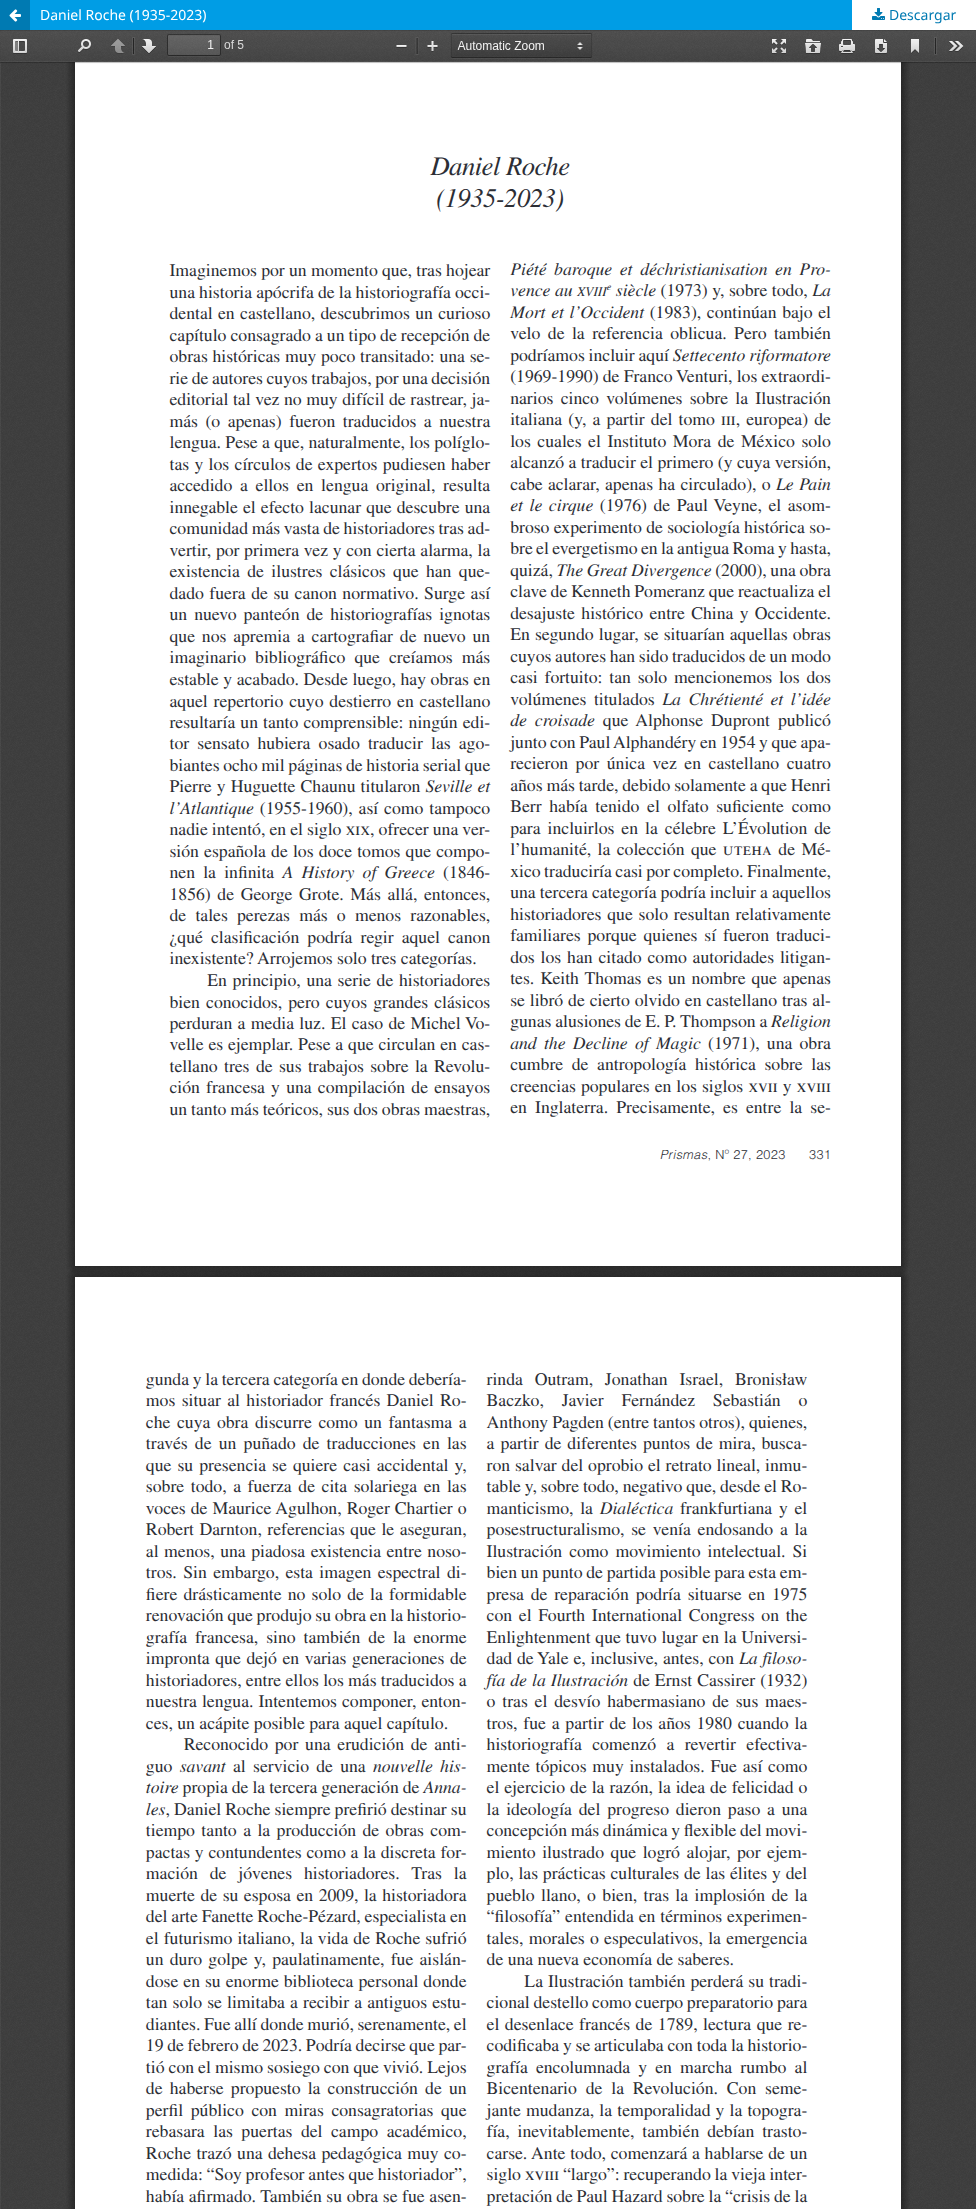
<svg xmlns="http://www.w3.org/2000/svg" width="976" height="2209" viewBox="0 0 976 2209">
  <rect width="100%" height="100%" fill="#ffffff"/>
  <rect x="30" y="0" width="822" height="30" fill="#009de5"/>
  <rect x="0" y="0" width="30" height="30" fill="#007ab2"/>
  <image x="9" y="9" width="12" height="13" href="img1.png"/>
  <text x="40" y="20" font-family="Noto Sans" font-size="14" fill="#ffffff">Daniel Roche (1935-2023)</text>
  <image x="872" y="8" width="13" height="12" href="img2.png"/>
  <text x="889" y="20" font-family="Noto Sans" font-size="14" fill="#007ab2">Descargar</text>
  <image x="0" y="30" width="976" height="2179" href="img3.png"/>
</svg>
